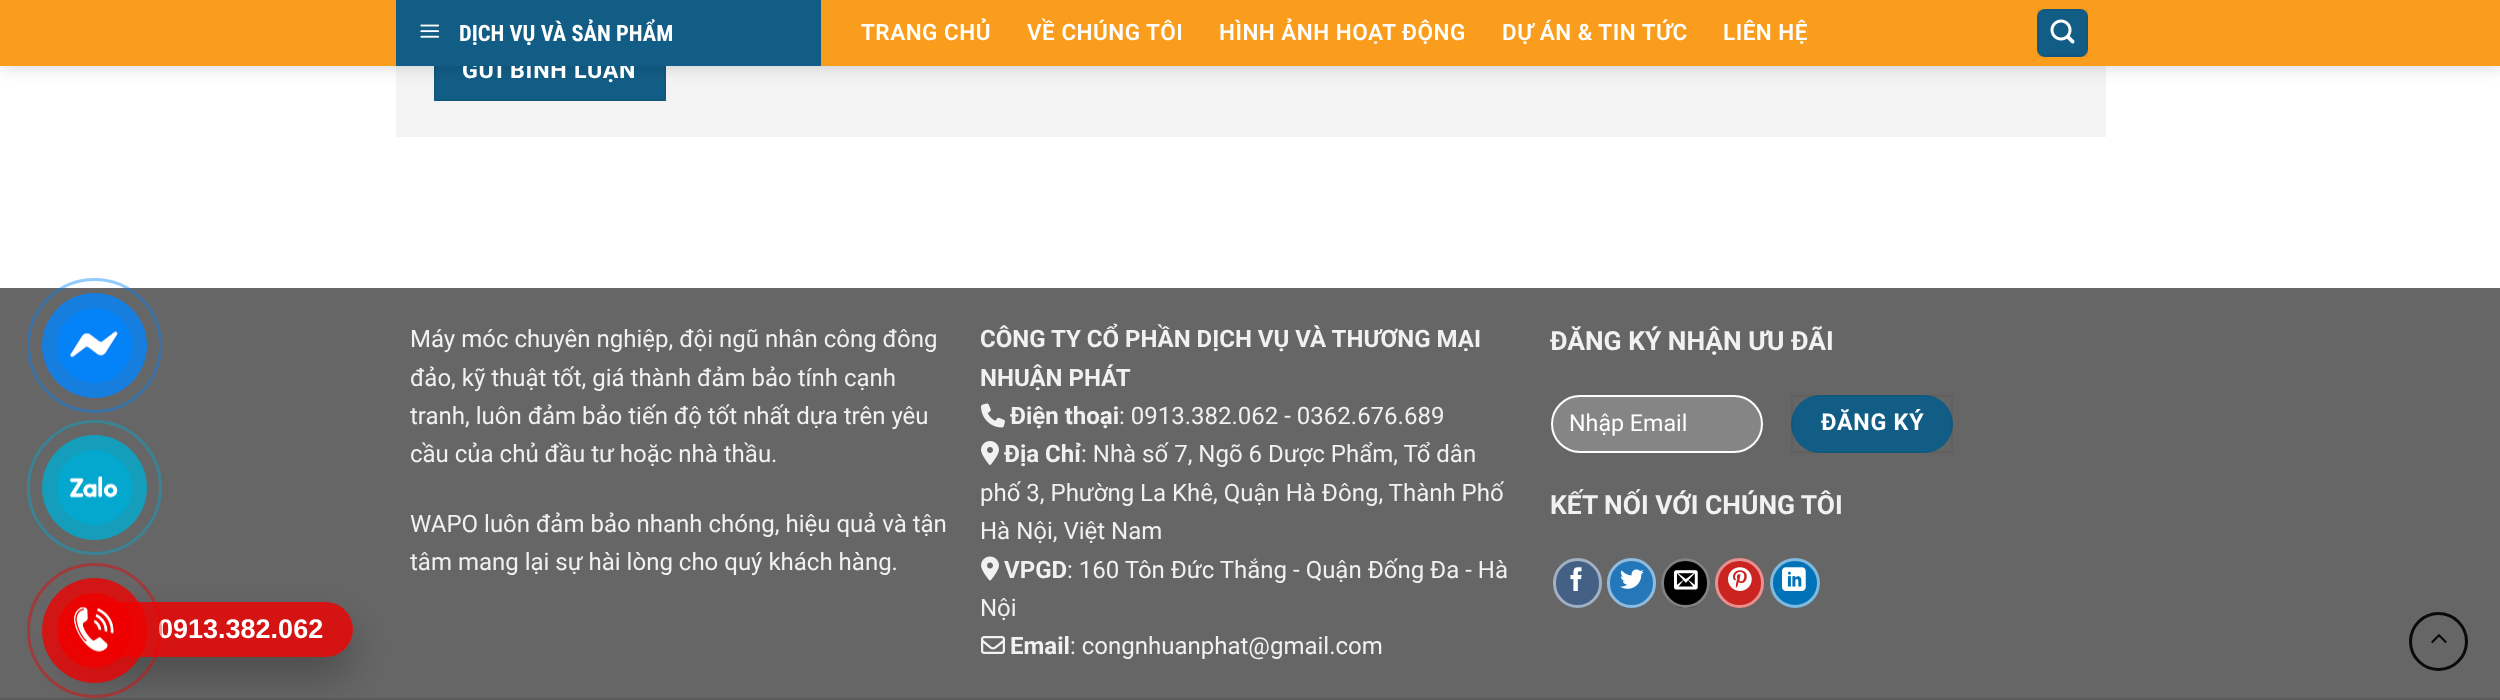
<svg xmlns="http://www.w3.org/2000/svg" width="2500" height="700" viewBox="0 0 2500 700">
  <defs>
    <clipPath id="clip1"><path d="M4 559H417V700H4ZM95.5 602H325.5C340.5 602 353 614.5 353 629.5C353 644.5 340.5 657 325.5 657H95.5C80.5 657 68 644.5 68 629.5C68 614.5 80.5 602 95.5 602Z" clip-rule="evenodd"/></clipPath>
    <filter id="blur1" x="-50%" y="-200%" width="200%" height="500%"><feGaussianBlur stdDeviation="21"/></filter>
    <filter id="blur2" x="-50%" y="-200%" width="200%" height="500%"><feGaussianBlur stdDeviation="7.5"/></filter>
  </defs>
  <rect width="100%" height="100%" fill="#ffffff"/>
  <rect x="0" y="288" width="2500" height="410" fill="#666666"/>
  <circle cx="94.5" cy="345.5" r="66" fill="none" stroke="#0084ff" stroke-opacity="0.42" stroke-width="3"/>
  <circle cx="94.5" cy="345.5" r="52.5" fill="#157edf"/>
  <circle cx="94.5" cy="345.5" r="37.5" fill="#0483f9"/>
  <image x="70" y="331" width="48" height="27" href="img1.png"/>
  <circle cx="94.5" cy="487.5" r="66" fill="none" stroke="#3b8394" stroke-width="3"/>
  <circle cx="94.5" cy="487.5" r="52.5" fill="#159dbc"/>
  <circle cx="94.5" cy="487.5" r="37.5" fill="#04a8cf"/>
  <image x="70" y="476" width="48" height="22" href="img2.png"/>
  <rect x="0" y="698" width="2500" height="2" fill="#5b5b5b"/>
  <g clip-path="url(#clip1)">
    <rect x="68" y="623" width="285" height="55" rx="27.5" fill="#000000" fill-opacity="0.25" filter="url(#blur1)"/>
  </g>
  <rect x="68" y="602" width="285" height="55" rx="27.5" fill="#f00000" fill-opacity="0.81"/>
  <text x="158" y="638" font-family="Liberation Sans" font-size="27" font-weight="bold" fill="#ffffff">0913.382.062</text>
  <circle cx="94.5" cy="630.5" r="66" fill="none" stroke="#f00000" stroke-opacity="0.42" stroke-width="3"/>
  <circle cx="94.5" cy="630.5" r="52.5" fill="#f00000" fill-opacity="0.79"/>
  <circle cx="94.5" cy="630.5" r="37.5" fill="#f00000" fill-opacity="0.81"/>
  <image x="74" y="606" width="40" height="46" href="img3.png"/>
  <rect x="396" y="66" width="1710" height="71" fill="#f3f3f3"/>
  <rect x="436" y="66" width="228" height="33" fill="#125d85"/>
  <rect x="435" y="43" width="230" height="57" fill="none" stroke="#11587e" stroke-width="2"/>
  <rect x="2" y="2" width="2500" height="66" fill="#000000" fill-opacity="0.15" filter="url(#blur2)"/>
  <text x="462" y="78" font-family="Roboto" font-size="23.25" font-weight="bold" letter-spacing="0.75" fill="#ffffff">GỬI BÌNH LUẬN</text>
  <rect x="0" y="0" width="2500" height="66" fill="#fa9d1c"/>
  <rect x="396" y="0" width="425" height="66" fill="#125d85"/>
  <image x="420" y="24" width="20" height="14" href="img4.png"/>
  <text x="459" y="41" font-family="Roboto Condensed" font-size="22.5" font-weight="bold" fill="#ffffff">DỊCH VỤ VÀ SẢN PHẨM</text>
  <text x="861" y="40" font-family="Roboto" font-size="22.5" font-weight="600" letter-spacing="0.5" fill="#ffffff">TRANG CHỦ</text>
  <text x="1027" y="40" font-family="Roboto" font-size="22.5" font-weight="600" letter-spacing="0.5" fill="#ffffff">VỀ CHÚNG TÔI</text>
  <text x="1219" y="40" font-family="Roboto" font-size="22.5" font-weight="600" letter-spacing="0.5" fill="#ffffff">HÌNH ẢNH HOẠT ĐỘNG</text>
  <text x="1502" y="40" font-family="Roboto" font-size="22.5" font-weight="600" letter-spacing="0.5" fill="#ffffff">DỰ ÁN &amp; TIN TỨC</text>
  <text x="1723" y="40" font-family="Roboto" font-size="22.5" font-weight="600" letter-spacing="0.5" fill="#ffffff">LIÊN HỆ</text>
  <rect x="2037" y="9" width="51" height="48" rx="8" fill="#125d85"/>
  <rect x="2038" y="10" width="49" height="46" fill="none" stroke="#000000" stroke-opacity="0.05" stroke-width="2"/>
  <image x="2050" y="19" width="25" height="25" href="img5.png"/>
  <text x="410" y="347" font-family="Roboto" font-size="24" fill="#f1f1f1">Máy móc chuyên nghiệp, đội ngũ nhân công đông</text>
  <text x="410" y="386" font-family="Roboto" font-size="24" fill="#f1f1f1">đảo, kỹ thuật tốt, giá thành đảm bảo tính cạnh</text>
  <text x="410" y="424" font-family="Roboto" font-size="24" fill="#f1f1f1">tranh, luôn đảm bảo tiến độ tốt nhất dựa trên yêu</text>
  <text x="410" y="462" font-family="Roboto" font-size="24" fill="#f1f1f1">cầu của chủ đầu tư hoặc nhà thầu.</text>
  <text x="410" y="532" font-family="Roboto" font-size="24" fill="#f1f1f1">WAPO luôn đảm bảo nhanh chóng, hiệu quả và tận</text>
  <text x="410" y="570" font-family="Roboto" font-size="24" fill="#f1f1f1">tâm mang lại sự hài lòng cho quý khách hàng.</text>
  <text x="980" y="347" font-family="Roboto" font-size="24" font-weight="bold" fill="#f1f1f1">CÔNG TY CỔ PHẦN DỊCH VỤ VÀ THƯƠNG MẠI</text>
  <text x="980" y="386" font-family="Roboto" font-size="24" font-weight="bold" fill="#f1f1f1">NHUẬN PHÁT</text>
  <image x="981" y="403" width="24" height="25" href="img6.png"/>
  <text x="1010" y="424" font-family="Roboto" font-size="24" font-weight="bold" fill="#f1f1f1">Điện thoại</text>
  <text x="1119" y="424" font-family="Roboto" font-size="24" fill="#f1f1f1">: 0913.382.062 - 0362.676.689</text>
  <image x="981" y="441" width="18" height="24" href="img7.png"/>
  <text x="1004" y="462" font-family="Roboto" font-size="24" font-weight="bold" fill="#f1f1f1">Địa Chỉ</text>
  <text x="1081" y="462" font-family="Roboto" font-size="24" fill="#f1f1f1">: Nhà số 7, Ngõ 6 Dược Phẩm, Tổ dân</text>
  <text x="980" y="501" font-family="Roboto" font-size="24" fill="#f1f1f1">phố 3, Phường La Khê, Quận Hà Đông, Thành Phố</text>
  <text x="980" y="539" font-family="Roboto" font-size="24" fill="#f1f1f1">Hà Nội, Việt Nam</text>
  <image x="981" y="556" width="18" height="25" href="img8.png"/>
  <text x="1004" y="578" font-family="Roboto" font-size="24" font-weight="bold" fill="#f1f1f1">VPGD</text>
  <text x="1067" y="578" font-family="Roboto" font-size="24" fill="#f1f1f1">: 160 Tôn Đức Thắng - Quận Đống Đa - Hà</text>
  <text x="980" y="616" font-family="Roboto" font-size="24" fill="#f1f1f1">Nội</text>
  <image x="981" y="636" width="24" height="18" href="img9.png"/>
  <text x="1010" y="654" font-family="Roboto" font-size="24" font-weight="bold" fill="#f1f1f1">Email</text>
  <text x="1070" y="654" font-family="Roboto" font-size="24" fill="#f1f1f1">: congnhuanphat@gmail.com</text>
  <text x="1550" y="350" font-family="Roboto" font-size="26.4" font-weight="bold" fill="#f1f1f1">ĐĂNG KÝ NHẬN ƯU ĐÃI</text>
  <rect x="1552" y="396" width="210" height="56" rx="28" fill="#858585" stroke="#ffffff" stroke-width="2"/>
  <text x="1569" y="431" font-family="Roboto" font-size="23.25" fill="#ffffff">Nhập Email</text>
  <rect x="1791" y="395" width="162" height="58" rx="29" fill="#125d85"/>
  <rect x="1792" y="396" width="160" height="56" fill="none" stroke="#000000" stroke-opacity="0.05" stroke-width="2"/>
  <text x="1821" y="430" font-family="Roboto" font-size="23.25" font-weight="bold" letter-spacing="0.75" fill="#ffffff">ĐĂNG KÝ</text>
  <text x="1550" y="514" font-family="Roboto" font-size="26.4" font-weight="bold" fill="#f1f1f1">KẾT NỐI VỚI CHÚNG TÔI</text>
  <rect x="1553" y="558" width="49" height="50" rx="24.5" fill="#446084"/>
  <rect x="1554.5" y="559.5" width="46" height="47" rx="23" fill="none" stroke="#ffffff" stroke-opacity="0.5" stroke-width="3"/>
  <image x="1570" y="567" width="12" height="24" href="img10.png"/>
  <rect x="1607" y="558" width="49" height="50" rx="24.5" fill="#2478ba"/>
  <rect x="1608.5" y="559.5" width="46" height="47" rx="23" fill="none" stroke="#ffffff" stroke-opacity="0.5" stroke-width="3"/>
  <image x="1620" y="569" width="24" height="20" href="img11.png"/>
  <rect x="1661" y="558" width="49" height="50" rx="24.5" fill="#000000"/>
  <rect x="1662.5" y="559.5" width="46" height="47" rx="23" fill="none" stroke="#ffffff" stroke-opacity="0.5" stroke-width="3"/>
  <image x="1674" y="570" width="24" height="20" href="img12.png"/>
  <rect x="1715" y="558" width="49" height="50" rx="24.5" fill="#cb2320"/>
  <rect x="1716.5" y="559.5" width="46" height="47" rx="23" fill="none" stroke="#ffffff" stroke-opacity="0.5" stroke-width="3"/>
  <image x="1728" y="567" width="24" height="24" href="img13.png"/>
  <circle cx="1795" cy="583" r="25" fill="#0072b7"/>
  <circle cx="1795" cy="583" r="23.5" fill="none" stroke="#ffffff" stroke-opacity="0.5" stroke-width="3"/>
  <image x="1782" y="567" width="24" height="24" href="img14.png"/>
  <circle cx="2438.5" cy="641.5" r="28" fill="none" stroke="#0a0a0a" stroke-width="3"/>
  <image x="2431" y="634" width="16" height="9" href="img15.png"/>
</svg>
